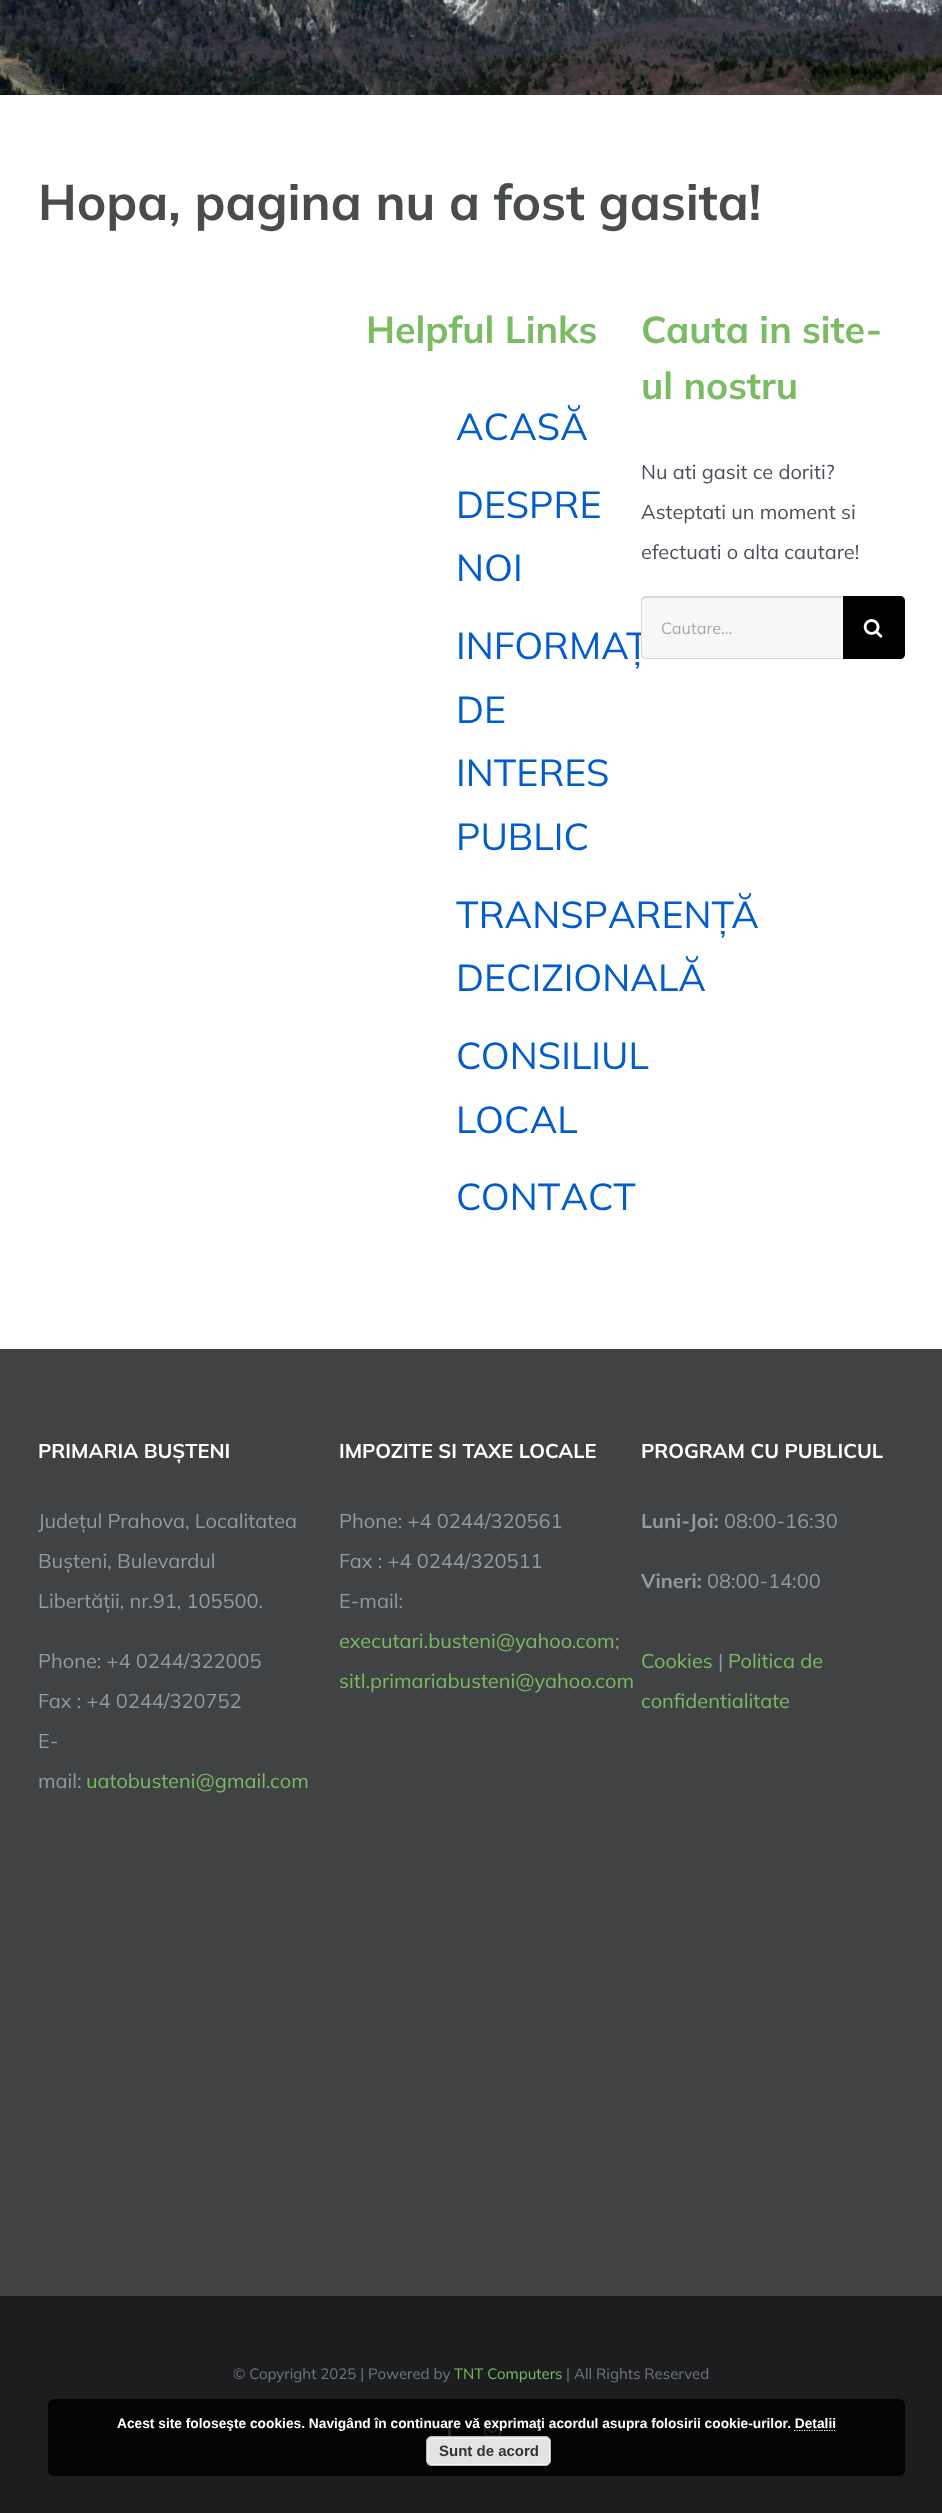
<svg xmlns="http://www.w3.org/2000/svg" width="942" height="2513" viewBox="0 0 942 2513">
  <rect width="100%" height="100%" fill="#ffffff"/>
  <image x="0" y="0" width="942" height="95" href="img1.png"/>
  <text x="38" y="220" font-family="Mulish" font-size="50" font-weight="bold" fill="#494c4e">Hopa, pagina nu a fost gasita!</text>
  <text x="366" y="343" font-family="Mulish" font-size="37.5" font-weight="bold" fill="#7abc64">Helpful Links</text>
  <text x="456" y="440" font-family="Mulish" font-size="37.5" fill="#025ccc">ACASĂ</text>
  <text x="456" y="518" font-family="Mulish" font-size="37.5" fill="#025ccc">DESPRE</text>
  <text x="456" y="581" font-family="Mulish" font-size="37.5" fill="#025ccc">NOI</text>
  <text x="456" y="659" font-family="Mulish" font-size="37.5" fill="#025ccc">INFORMAȚ</text>
  <text x="456" y="723" font-family="Mulish" font-size="37.5" fill="#025ccc">DE</text>
  <text x="456" y="786" font-family="Mulish" font-size="37.5" fill="#025ccc">INTERES</text>
  <text x="456" y="850" font-family="Mulish" font-size="37.5" fill="#025ccc">PUBLIC</text>
  <text x="456" y="928" font-family="Mulish" font-size="37.5" fill="#025ccc">TRANSPARENȚĂ</text>
  <text x="456" y="991" font-family="Mulish" font-size="37.5" fill="#025ccc">DECIZIONALĂ</text>
  <text x="456" y="1069" font-family="Mulish" font-size="37.5" fill="#025ccc">CONSILIUL</text>
  <text x="456" y="1133" font-family="Mulish" font-size="37.5" fill="#025ccc">LOCAL</text>
  <text x="456" y="1210" font-family="Mulish" font-size="37.5" fill="#025ccc">CONTACT</text>
  <text x="641" y="343" font-family="Mulish" font-size="37.5" font-weight="bold" fill="#7abc64">Cauta in site-</text>
  <text x="641" y="399" font-family="Mulish" font-size="37.5" font-weight="bold" fill="#7abc64">ul nostru</text>
  <text x="641" y="479" font-family="Mulish" font-size="20" fill="#4a4e57">Nu ati gasit ce doriti?</text>
  <text x="641" y="519" font-family="Mulish" font-size="20" fill="#4a4e57">Asteptati un moment si</text>
  <text x="641" y="559" font-family="Mulish" font-size="20" fill="#4a4e57">efectuati o alta cautare!</text>
  <path d="M646 596H843V659H646C643 659 641 657 641 654V601C641 598 643 596 646 596Z" fill="#f7f7f7"/>
  <path d="M646 596C643 596 641 598 641 601V654C641 657 643 659 646 659H842V658H646C644 658 642 656 642 654V601C642 599 644 598 646 598H842V596Z" fill="#d8d8d8"/>
  <text x="661" y="634" font-family="Mulish" font-size="16.25" fill="#aaa9a9">Cautare...</text>
  <path d="M843 596H900C903 596 905 598 905 601V654C905 657 903 659 900 659H843Z" fill="#000000"/>
  <image x="863" y="619" width="20" height="19" href="img2.png"/>
  <rect x="0" y="1349" width="942" height="947" fill="#404243"/>
  <text x="38" y="1458" font-family="Mulish" font-size="20" font-weight="bold" fill="#ffffff">PRIMARIA BUȘTENI</text>
  <text x="38" y="1528" font-family="Mulish" font-size="20" fill="#929aa3">Județul Prahova, Localitatea</text>
  <text x="38" y="1568" font-family="Mulish" font-size="20" fill="#929aa3">Bușteni, Bulevardul</text>
  <text x="38" y="1608" font-family="Mulish" font-size="20" fill="#929aa3">Libertății, nr.91, 105500.</text>
  <text x="38" y="1668" font-family="Mulish" font-size="20" fill="#929aa3">Phone: +4 0244/322005</text>
  <text x="38" y="1708" font-family="Mulish" font-size="20" fill="#929aa3">Fax : +4 0244/320752</text>
  <text x="38" y="1748" font-family="Mulish" font-size="20" fill="#929aa3">E-</text>
  <text x="38" y="1788" font-family="Mulish" font-size="20" fill="#929aa3">mail:</text>
  <text x="86" y="1788" font-family="Mulish" font-size="20" fill="#7abc64">uatobusteni@gmail.com</text>
  <text x="339" y="1458" font-family="Mulish" font-size="20" font-weight="bold" fill="#ffffff">IMPOZITE SI TAXE LOCALE</text>
  <text x="339" y="1528" font-family="Mulish" font-size="20" fill="#929aa3">Phone: +4 0244/320561</text>
  <text x="339" y="1568" font-family="Mulish" font-size="20" fill="#929aa3">Fax : +4 0244/320511</text>
  <text x="339" y="1608" font-family="Mulish" font-size="20" fill="#929aa3">E-mail:</text>
  <text x="339" y="1648" font-family="Mulish" font-size="20" fill="#7abc64">executari.busteni@yahoo.com</text>
  <text x="615" y="1648" font-family="Mulish" font-size="20" fill="#929aa3">;</text>
  <text x="339" y="1688" font-family="Mulish" font-size="20" fill="#7abc64">sitl.primariabusteni@yahoo.com</text>
  <text x="641" y="1458" font-family="Mulish" font-size="20" font-weight="bold" fill="#ffffff">PROGRAM CU PUBLICUL</text>
  <text x="641" y="1528" font-family="Mulish" font-size="20" font-weight="bold" fill="#929aa3">Luni-Joi:</text>
  <text x="724" y="1528" font-family="Mulish" font-size="20" fill="#929aa3">08:00-16:30</text>
  <text x="641" y="1588" font-family="Mulish" font-size="20" font-weight="bold" fill="#929aa3">Vineri:</text>
  <text x="707" y="1588" font-family="Mulish" font-size="20" fill="#929aa3">08:00-14:00</text>
  <text x="641" y="1668" font-family="Mulish" font-size="20" fill="#7abc64">Cookies</text>
  <text x="718" y="1668" font-family="Mulish" font-size="20" fill="#929aa3">|</text>
  <text x="728" y="1668" font-family="Mulish" font-size="20" fill="#7abc64">Politica de</text>
  <text x="641" y="1708" font-family="Mulish" font-size="20" fill="#7abc64">confidentialitate</text>
  <rect x="0" y="2296" width="942" height="217" fill="#1c1d1e"/>
  <text x="233" y="2379" font-family="Mulish" font-size="15" fill="#72767a">© Copyright 2025 | Powered by</text>
  <text x="454" y="2379" font-family="Mulish" font-size="15" fill="#7abc64">TNT Computers</text>
  <text x="566" y="2379" font-family="Mulish" font-size="15" fill="#72767a">| All Rights Reserved</text>
  <image x="445" y="2419" width="9" height="17" href="img3.png"/>
  <image x="483" y="2419" width="18" height="17" href="img4.png"/>
  <rect x="48" y="2399" width="857" height="77" rx="6" fill="#000000" fill-opacity="0.85"/>
  <text x="117" y="2428" font-family="Liberation Sans" font-size="13.75" font-weight="bold" fill="#ffffff">Acest site foloseşte cookies. Navigând în continuare vă exprimaţi acordul asupra folosirii cookie-urilor. Detalii</text>
  <path d="M794 2430.5H835" fill="none" stroke="#ffffff" stroke-width="1.2" stroke-dasharray="1.25 1.25"/>
  <rect x="426" y="2436" width="125" height="30" rx="6" fill="#e3e3e3"/>
  <rect x="428.5" y="2438.5" width="121" height="26" rx="4.5" fill="none" stroke="#f6f6f6"/>
  <rect x="426.5" y="2436.5" width="124" height="29" rx="5.5" fill="none" stroke="#bbbbbb"/>
  <text x="439" y="2456" font-family="Liberation Sans" font-size="15" font-weight="bold" fill="#333333">Sunt de acord</text>
</svg>
